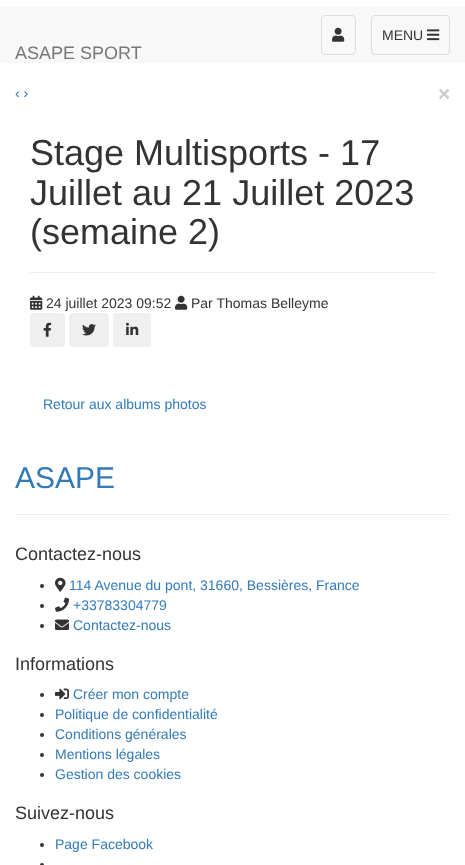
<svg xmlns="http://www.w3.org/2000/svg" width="465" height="865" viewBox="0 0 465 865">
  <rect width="100%" height="100%" fill="#ffffff"/>
  <rect x="0" y="7" width="465" height="56" fill="#f8f8f8"/>
  <rect x="321.5" y="15.5" width="34" height="39" rx="3.5" fill="none" stroke="#dddddd"/>
  <image x="332" y="27" width="13" height="15" href="img1.png"/>
  <rect x="371.5" y="15.5" width="78" height="39" rx="3.5" fill="none" stroke="#dddddd"/>
  <text x="382" y="40" font-family="Liberation Sans" font-size="14" fill="#333333">MENU</text>
  <image x="427" y="29" width="13" height="12" href="img2.png"/>
  <text x="15" y="59" font-family="Liberation Sans" font-size="18" fill="#777777">ASAPE SPORT</text>
  <text x="15" y="98" font-family="Liberation Sans" font-size="14" fill="#337ab7">‹ ›</text>
  <text x="438" y="101" font-family="Liberation Sans" font-size="21" font-weight="bold" fill="#cccccc">×</text>
  <text x="30" y="165" font-family="Liberation Sans" font-size="36" fill="#333333">Stage Multisports - 17</text>
  <text x="30" y="205" font-family="Liberation Sans" font-size="36" fill="#333333">Juillet au 21 Juillet 2023</text>
  <text x="30" y="244" font-family="Liberation Sans" font-size="36" fill="#333333">(semaine 2)</text>
  <rect x="30" y="272" width="405" height="1" fill="#eeeeee"/>
  <image x="30" y="295" width="13" height="15" href="img3.png"/>
  <text x="46" y="308" font-family="Liberation Sans" font-size="14" fill="#333333">24 juillet 2023 09:52</text>
  <image x="175" y="295" width="13" height="15" href="img4.png"/>
  <text x="191" y="308" font-family="Liberation Sans" font-size="14" fill="#333333">Par Thomas Belleyme</text>
  <rect x="30" y="313" width="35" height="34" rx="4" fill="#efefef"/>
  <image x="43" y="322" width="9" height="15" href="img5.png"/>
  <rect x="69" y="313" width="40" height="34" rx="4" fill="#efefef"/>
  <image x="82" y="324" width="14" height="12" href="img6.png"/>
  <rect x="113" y="313" width="38" height="34" rx="4" fill="#efefef"/>
  <image x="126" y="322" width="13" height="13" href="img7.png"/>
  <text x="43" y="409" font-family="Liberation Sans" font-size="14" fill="#337ab7">Retour aux albums photos</text>
  <text x="15" y="488" font-family="Liberation Sans" font-size="30" fill="#337ab7">ASAPE</text>
  <rect x="15" y="514" width="435" height="1" fill="#eeeeee"/>
  <text x="15" y="560" font-family="Liberation Sans" font-size="18" fill="#333333">Contactez-nous</text>
  <circle cx="42" cy="586" r="2" fill="#333333"/>
  <image x="55" y="577" width="11" height="15" href="img8.png"/>
  <text x="69" y="590" font-family="Liberation Sans" font-size="14" fill="#337ab7">114 Avenue du pont, 31660, Bessières, France</text>
  <circle cx="42" cy="606" r="2" fill="#333333"/>
  <image x="55" y="597" width="14" height="15" href="img9.png"/>
  <text x="73" y="610" font-family="Liberation Sans" font-size="14" fill="#337ab7">+33783304779</text>
  <circle cx="42" cy="626" r="2" fill="#333333"/>
  <image x="55" y="619" width="14" height="11" href="img10.png"/>
  <text x="73" y="630" font-family="Liberation Sans" font-size="14" fill="#337ab7">Contactez-nous</text>
  <text x="15" y="670" font-family="Liberation Sans" font-size="18" fill="#333333">Informations</text>
  <circle cx="42" cy="695" r="2" fill="#333333"/>
  <image x="55" y="688" width="14" height="12" href="img11.png"/>
  <text x="73" y="699" font-family="Liberation Sans" font-size="14" fill="#337ab7">Créer mon compte</text>
  <circle cx="42" cy="715" r="2" fill="#333333"/>
  <text x="55" y="719" font-family="Liberation Sans" font-size="14" fill="#337ab7">Politique de confidentialité</text>
  <circle cx="42" cy="735" r="2" fill="#333333"/>
  <text x="55" y="739" font-family="Liberation Sans" font-size="14" fill="#337ab7">Conditions générales</text>
  <circle cx="42" cy="755" r="2" fill="#333333"/>
  <text x="55" y="759" font-family="Liberation Sans" font-size="14" fill="#337ab7">Mentions légales</text>
  <circle cx="42" cy="775" r="2" fill="#333333"/>
  <text x="55" y="779" font-family="Liberation Sans" font-size="14" fill="#337ab7">Gestion des cookies</text>
  <text x="15" y="819" font-family="Liberation Sans" font-size="18" fill="#333333">Suivez-nous</text>
  <circle cx="42" cy="845" r="2" fill="#333333"/>
  <text x="55" y="849" font-family="Liberation Sans" font-size="14" fill="#337ab7">Page Facebook</text>
  <circle cx="42" cy="865" r="2" fill="#333333"/>
</svg>
